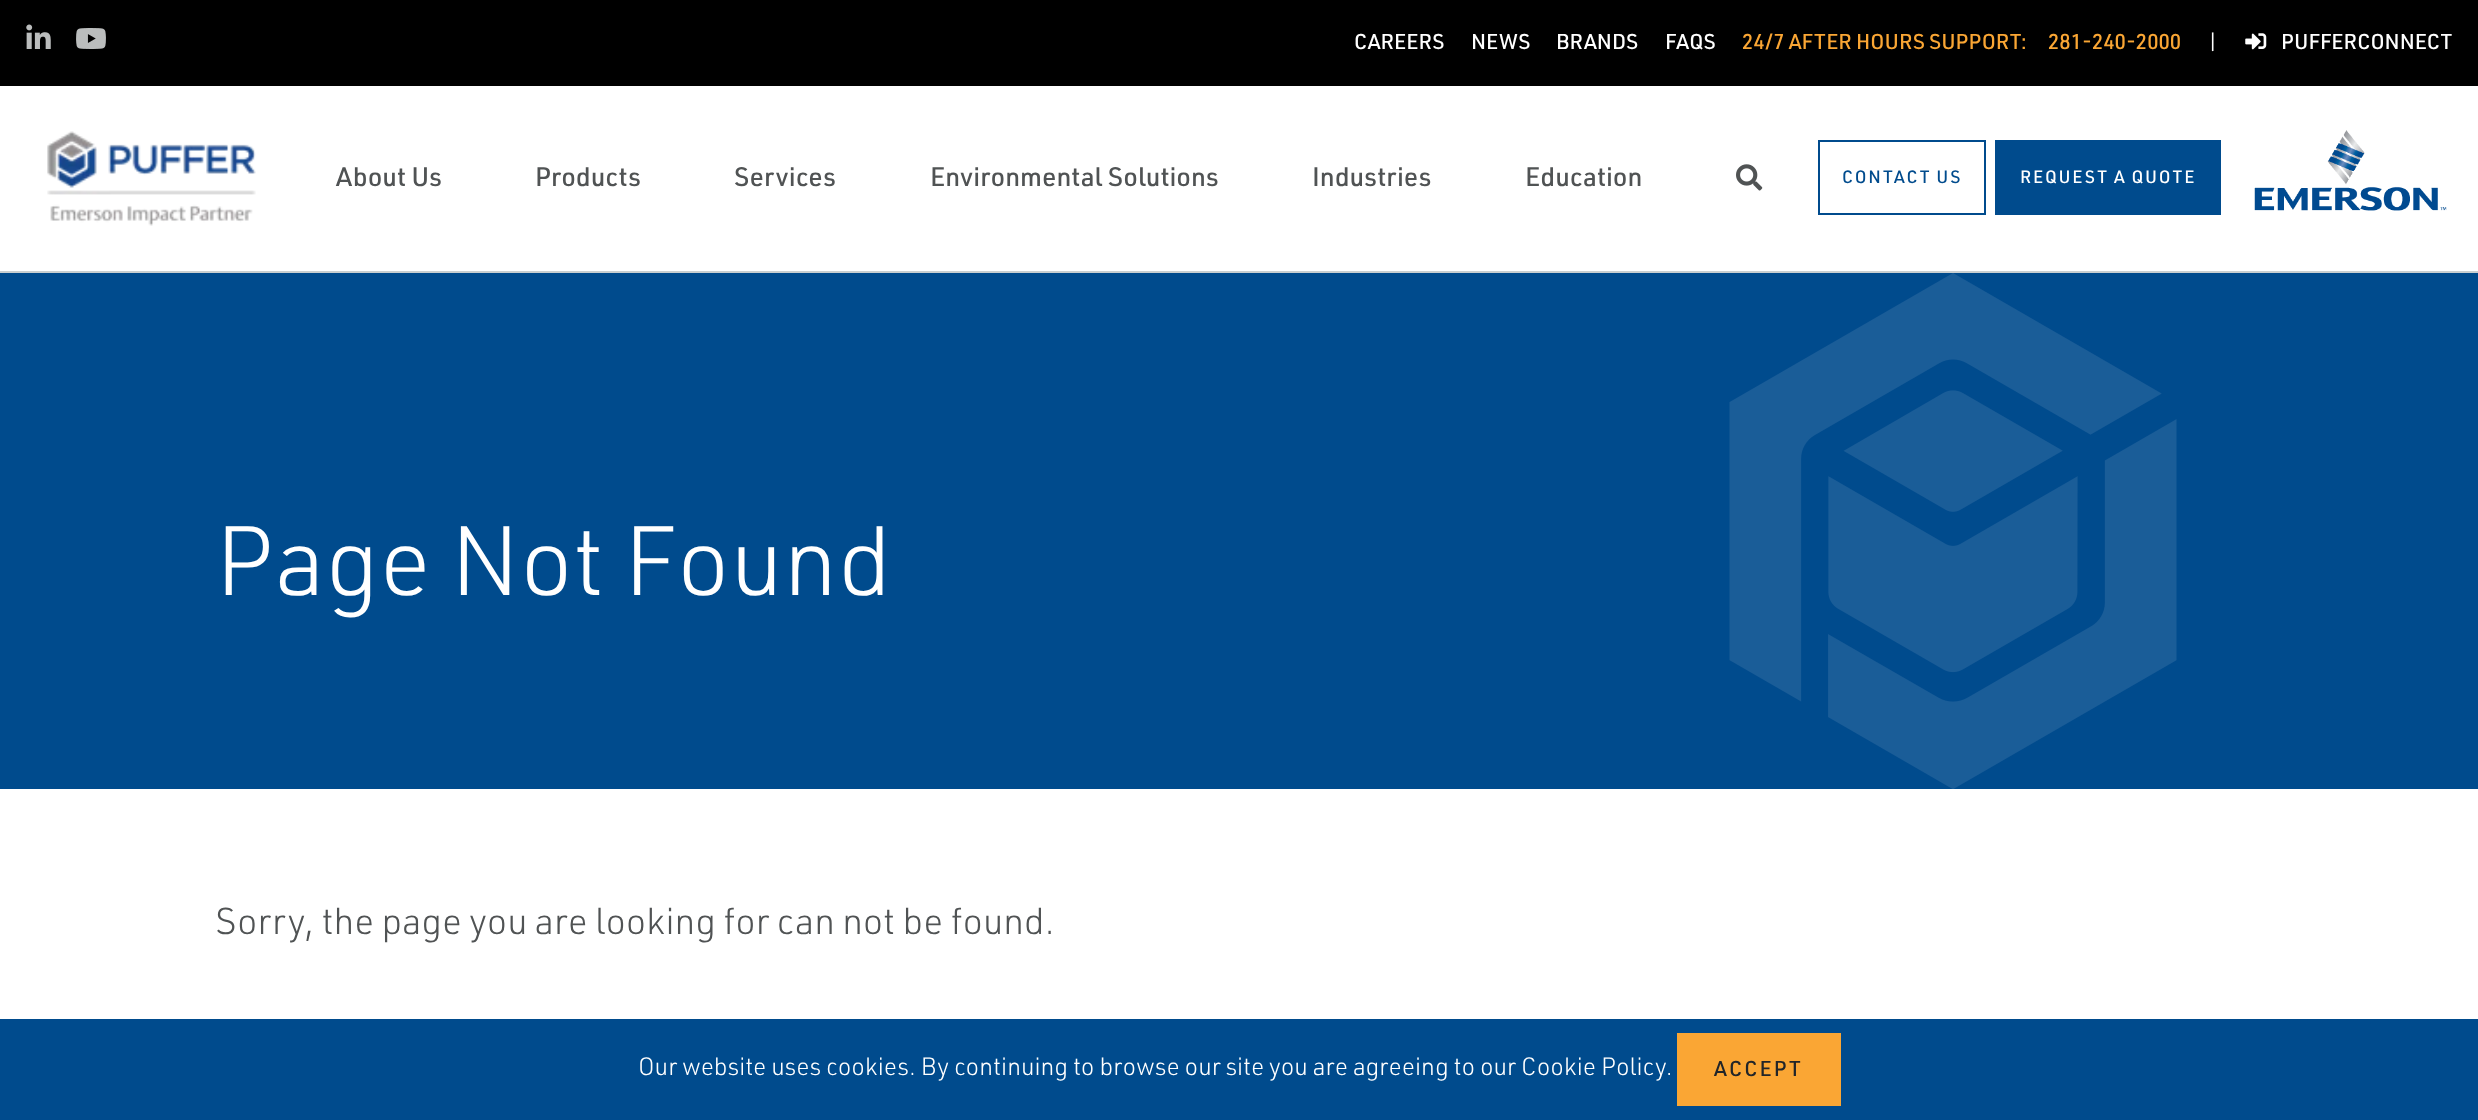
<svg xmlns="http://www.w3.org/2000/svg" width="2478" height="1120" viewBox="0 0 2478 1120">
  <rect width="100%" height="100%" fill="#ffffff"/>
  <rect x="0" y="271" width="2478" height="2" fill="#cacfd0"/>
  <rect x="0" y="0" width="2478" height="86" fill="#000000"/>
  <image x="26" y="24" width="25" height="25" href="img1.png"/>
  <image x="76" y="28" width="30" height="21" href="img2.png"/>
  <text x="1354" y="49" font-family="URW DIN" font-size="21" font-weight="500" fill="#ffffff">CAREERS</text>
  <text x="1471" y="49" font-family="URW DIN" font-size="21" font-weight="500" fill="#ffffff">NEWS</text>
  <text x="1556" y="49" font-family="URW DIN" font-size="21" font-weight="500" fill="#ffffff">BRANDS</text>
  <text x="1665" y="49" font-family="URW DIN" font-size="21" font-weight="500" fill="#ffffff">FAQS</text>
  <text x="1742" y="49" font-family="URW DIN" font-size="21" font-weight="500" fill="#faa634">24/7 AFTER HOURS SUPPORT:</text>
  <text x="2048" y="49" font-family="URW DIN" font-size="21" font-weight="500" fill="#faa634">281-240-2000</text>
  <text x="2207" y="49" font-family="URW DIN" font-size="21" fill="#ffffff">|</text>
  <image x="2245" y="33" width="22" height="17" href="img3.png"/>
  <text x="2281" y="49" font-family="URW DIN" font-size="21" font-weight="500" fill="#ffffff">PUFFERCONNECT</text>
  <image x="47" y="131" width="209" height="95" href="img4.png"/>
  <text x="336" y="186" font-family="URW DIN" font-size="26.25" font-weight="500" fill="#505354">About Us</text>
  <text x="535" y="186" font-family="URW DIN" font-size="26.25" font-weight="500" fill="#505354">Products</text>
  <text x="734" y="186" font-family="URW DIN" font-size="26.25" font-weight="500" fill="#505354">Services</text>
  <text x="930" y="186" font-family="URW DIN" font-size="26.25" font-weight="500" fill="#505354">Environmental Solutions</text>
  <text x="1312" y="186" font-family="URW DIN" font-size="26.25" font-weight="500" fill="#505354">Industries</text>
  <text x="1525" y="186" font-family="URW DIN" font-size="26.25" font-weight="500" fill="#505354">Education</text>
  <image x="1736" y="164" width="27" height="27" href="img5.png"/>
  <rect x="1819" y="141" width="166" height="73" fill="none" stroke="#004b8d" stroke-width="2"/>
  <text x="1842" y="183" font-family="URW DIN" font-size="17.5" font-weight="500" letter-spacing="1.75" fill="#004b8d">CONTACT US</text>
  <rect x="1995" y="140" width="226" height="75" fill="#004b8d"/>
  <text x="2020" y="183" font-family="URW DIN" font-size="17.5" font-weight="500" letter-spacing="1.75" fill="#ffffff">REQUEST A QUOTE</text>
  <image x="2254" y="130" width="193" height="81" href="img6.png"/>
  <rect x="0" y="273" width="2478" height="516" fill="#004b8d"/>
  <text x="215" y="595" font-family="URW DIN" font-size="96.25" font-weight="300" fill="#ffffff">Page Not Found</text>
  <image x="1729" y="273" width="448" height="516" href="img7.png"/>
  <text x="215" y="934" font-family="URW DIN" font-size="36.75" font-weight="300" fill="#505354">Sorry, the page you are looking for can not be found.</text>
  <rect x="0" y="1019" width="2478" height="101" fill="#004b8d"/>
  <text x="638" y="1075" font-family="URW DIN" font-size="24.5" font-weight="300" fill="#ffffff">Our website uses cookies. By continuing to browse our site you are agreeing to our Cookie Policy.</text>
  <rect x="1677" y="1033" width="164" height="73" fill="#faa634"/>
  <text x="1714" y="1076" font-family="URW DIN" font-size="21" font-weight="500" letter-spacing="2" fill="#212529">ACCEPT</text>
</svg>
